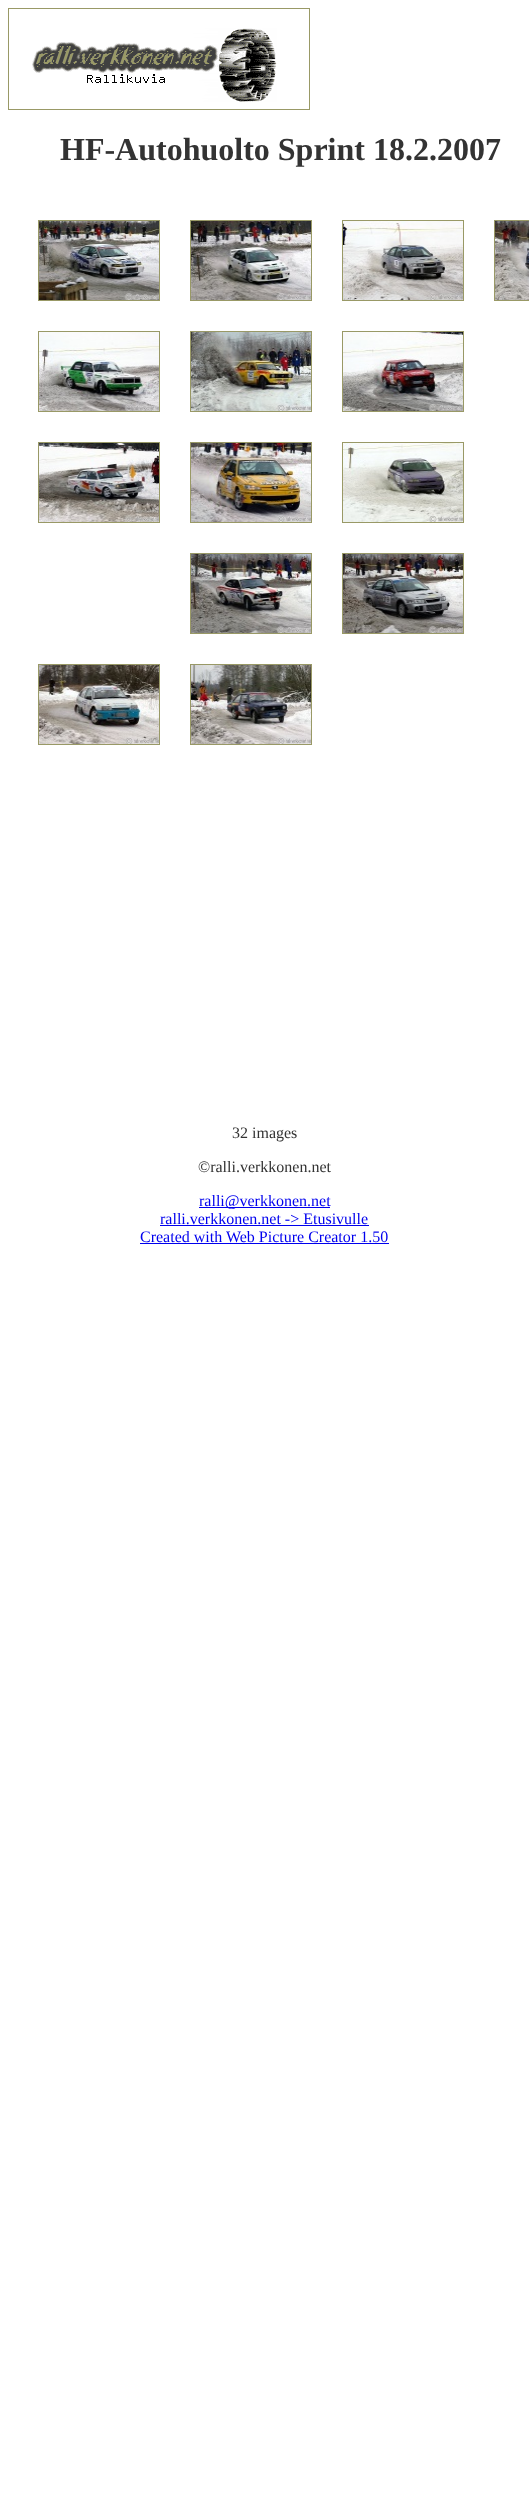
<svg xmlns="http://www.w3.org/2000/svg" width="529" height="2509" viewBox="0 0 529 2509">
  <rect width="100%" height="100%" fill="#ffffff"/>
  <rect x="8.5" y="8.5" width="301" height="101" fill="none" stroke="#999966"/>
  <image x="32" y="28" width="245" height="74" href="img1.png"/>
  <text x="60" y="160" font-family="Liberation Serif" font-size="32" font-weight="bold" fill="#333333">HF-Autohuolto Sprint 18.2.2007</text>
  <rect x="38.5" y="220.5" width="121" height="80" fill="none" stroke="#999966"/>
  <image x="39" y="221" width="120" height="79" href="img2.png"/>
  <rect x="190.5" y="220.5" width="121" height="80" fill="none" stroke="#999966"/>
  <image x="191" y="221" width="120" height="79" href="img3.png"/>
  <rect x="342.5" y="220.5" width="121" height="80" fill="none" stroke="#999966"/>
  <image x="343" y="221" width="120" height="79" href="img4.png"/>
  <rect x="494.5" y="220.5" width="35" height="80" fill="none" stroke="#999966"/>
  <image x="495" y="221" width="34" height="79" href="img5.png"/>
  <rect x="38.5" y="331.5" width="121" height="80" fill="none" stroke="#999966"/>
  <image x="39" y="332" width="120" height="79" href="img6.png"/>
  <rect x="190.5" y="331.5" width="121" height="80" fill="none" stroke="#999966"/>
  <image x="191" y="332" width="120" height="79" href="img7.png"/>
  <rect x="342.5" y="331.5" width="121" height="80" fill="none" stroke="#999966"/>
  <image x="343" y="332" width="120" height="79" href="img8.png"/>
  <rect x="38.5" y="442.5" width="121" height="80" fill="none" stroke="#999966"/>
  <image x="39" y="443" width="120" height="79" href="img9.png"/>
  <rect x="190.5" y="442.5" width="121" height="80" fill="none" stroke="#999966"/>
  <image x="191" y="443" width="120" height="79" href="img10.png"/>
  <rect x="342.5" y="442.5" width="121" height="80" fill="none" stroke="#999966"/>
  <image x="343" y="443" width="120" height="79" href="img11.png"/>
  <rect x="190.5" y="553.5" width="121" height="80" fill="none" stroke="#999966"/>
  <image x="191" y="554" width="120" height="79" href="img12.png"/>
  <rect x="342.5" y="553.5" width="121" height="80" fill="none" stroke="#999966"/>
  <image x="343" y="554" width="120" height="79" href="img13.png"/>
  <rect x="38.5" y="664.5" width="121" height="80" fill="none" stroke="#999966"/>
  <image x="39" y="665" width="120" height="79" href="img14.png"/>
  <rect x="190.5" y="664.5" width="121" height="80" fill="none" stroke="#999966"/>
  <image x="191" y="665" width="120" height="79" href="img15.png"/>
  <text x="232" y="1138" font-family="Liberation Serif" font-size="16" fill="#333333">32 images</text>
  <text x="198" y="1172" font-family="Liberation Serif" font-size="16" fill="#333333">©ralli.verkkonen.net</text>
  <rect x="199" y="1207" width="131" height="1" fill="#0000ee"/>
  <text x="199" y="1206" font-family="Liberation Serif" font-size="16" fill="#0000ee">ralli@verkkonen.net</text>
  <text x="160" y="1224" font-family="Liberation Serif" font-size="16" fill="#0000ee">ralli.verkkonen.net -&gt; Etusivulle</text>
  <rect x="160" y="1225" width="209" height="1" fill="#0000ee"/>
  <text x="140" y="1242" font-family="Liberation Serif" font-size="16" fill="#0000ee">Created with Web Picture Creator 1.50</text>
  <rect x="140" y="1243" width="249" height="1" fill="#0000ee"/>
</svg>
